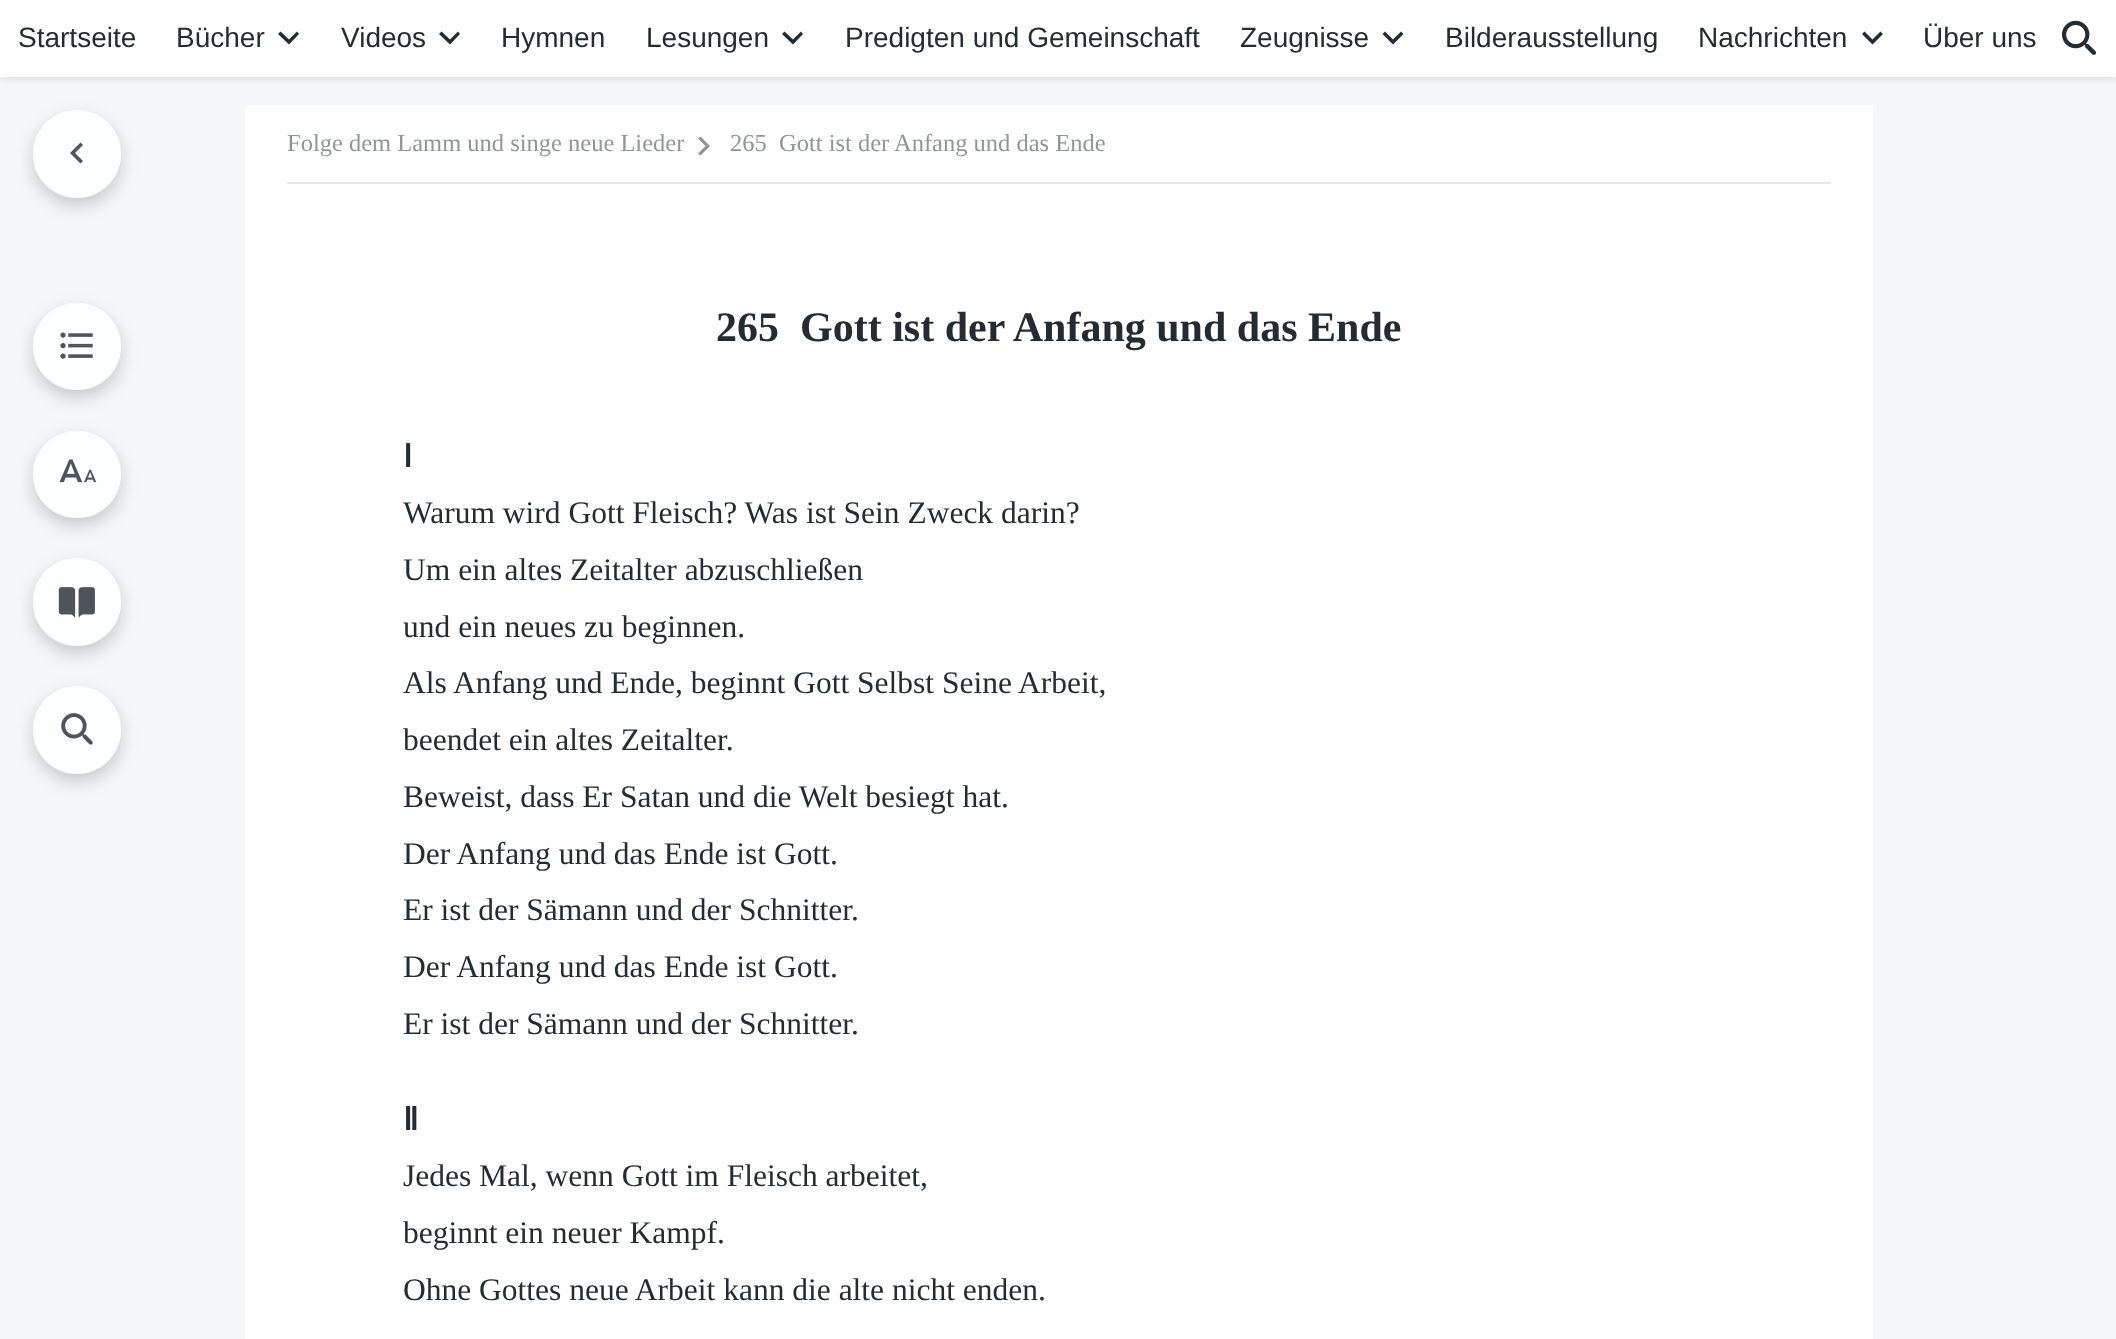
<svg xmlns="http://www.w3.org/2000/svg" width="2116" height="1339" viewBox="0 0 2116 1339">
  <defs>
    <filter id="blur1" x="-50%" y="-200%" width="200%" height="500%"><feGaussianBlur stdDeviation="5"/></filter>
    <clipPath id="clip1"><path d="M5 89H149V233H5ZM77 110C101.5 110 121 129.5 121 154C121 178.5 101.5 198 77 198C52.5 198 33 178.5 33 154C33 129.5 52.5 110 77 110Z" clip-rule="evenodd"/></clipPath>
    <filter id="blur2" x="-50%" y="-200%" width="200%" height="500%"><feGaussianBlur stdDeviation="9"/></filter>
    <clipPath id="clip2"><path d="M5 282H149V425H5ZM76.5 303H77.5C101.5 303 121 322.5 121 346.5C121 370.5 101.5 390 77.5 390H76.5C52.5 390 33 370.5 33 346.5C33 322.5 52.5 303 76.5 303Z" clip-rule="evenodd"/></clipPath>
    <clipPath id="clip3"><path d="M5 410H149V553H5ZM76.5 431H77.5C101.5 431 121 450.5 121 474.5C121 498.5 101.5 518 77.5 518H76.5C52.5 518 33 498.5 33 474.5C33 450.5 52.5 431 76.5 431Z" clip-rule="evenodd"/></clipPath>
    <clipPath id="clip4"><path d="M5 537H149V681H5ZM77 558C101.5 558 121 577.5 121 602C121 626.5 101.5 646 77 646C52.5 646 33 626.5 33 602C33 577.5 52.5 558 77 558Z" clip-rule="evenodd"/></clipPath>
    <clipPath id="clip5"><path d="M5 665H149V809H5ZM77 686C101.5 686 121 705.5 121 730C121 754.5 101.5 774 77 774C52.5 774 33 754.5 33 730C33 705.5 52.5 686 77 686Z" clip-rule="evenodd"/></clipPath>
  </defs>
  <rect width="100%" height="100%" fill="#f6f7f9"/>
  <rect x="0" y="2" width="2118" height="77" fill="#000000" fill-opacity="0.11" filter="url(#blur1)"/>
  <rect x="0" y="0" width="2116" height="77" fill="#ffffff"/>
  <text x="18" y="47" font-family="Liberation Sans" font-size="28" fill="#262b33">Startseite</text>
  <text x="176" y="47" font-family="Liberation Sans" font-size="28" fill="#262b33">Bücher</text>
  <path d="M297 31.5L289 39.5L280.5 31.5L278 34L289 44.5L299 34Z" fill="#262b33"/>
  <text x="341" y="47" font-family="Liberation Sans" font-size="28" fill="#262b33">Videos</text>
  <path d="M458 31.5L450 39.5L441.5 31.5L439 34L450 44.5L460 34Z" fill="#262b33"/>
  <text x="501" y="47" font-family="Liberation Sans" font-size="28" fill="#262b33">Hymnen</text>
  <text x="646" y="47" font-family="Liberation Sans" font-size="28" fill="#262b33">Lesungen</text>
  <path d="M801 31.5L793 39.5L784.5 31.5L782 34L793 44.5L803 34Z" fill="#262b33"/>
  <text x="845" y="47" font-family="Liberation Sans" font-size="28" fill="#262b33">Predigten und Gemeinschaft</text>
  <text x="1240" y="47" font-family="Liberation Sans" font-size="28" fill="#262b33">Zeugnisse</text>
  <path d="M1401 31.5L1393 39.5L1385 31.5L1382.5 34L1393 44.5L1403.5 34Z" fill="#262b33"/>
  <text x="1445" y="47" font-family="Liberation Sans" font-size="28" fill="#262b33">Bilderausstellung</text>
  <text x="1698" y="47" font-family="Liberation Sans" font-size="28" fill="#262b33">Nachrichten</text>
  <path d="M1880.5 31.5L1872.5 39.5L1864.5 31.5L1862 34L1872.5 44.5L1883 34Z" fill="#262b33"/>
  <text x="1923" y="47" font-family="Liberation Sans" font-size="28" fill="#262b33">Über uns</text>
  <image x="2061" y="20" width="35" height="35" href="img1.png"/>
  <g clip-path="url(#clip1)">
    <rect x="33" y="117" width="88" height="88" rx="44" fill="#000000" fill-opacity="0.2" filter="url(#blur2)"/>
  </g>
  <circle cx="77" cy="154" r="44" fill="#ffffff" fill-opacity="0.8"/>
  <path d="M83 145L80.5 142.5L70 153L80.5 163.5L83 161L75 153Z" fill="#4e535c"/>
  <g clip-path="url(#clip2)">
    <rect x="33" y="310" width="88" height="87" rx="43.5" fill="#000000" fill-opacity="0.2" filter="url(#blur2)"/>
  </g>
  <rect x="33" y="303" width="88" height="87" rx="43.5" fill="#ffffff" fill-opacity="0.8"/>
  <image x="60" y="332" width="33" height="27" href="img2.png"/>
  <g clip-path="url(#clip3)">
    <rect x="33" y="438" width="88" height="87" rx="43.5" fill="#000000" fill-opacity="0.2" filter="url(#blur2)"/>
  </g>
  <rect x="33" y="431" width="88" height="87" rx="43.5" fill="#ffffff" fill-opacity="0.8"/>
  <image x="59" y="459" width="38" height="24" href="img3.png"/>
  <g clip-path="url(#clip4)">
    <rect x="33" y="565" width="88" height="88" rx="44" fill="#000000" fill-opacity="0.2" filter="url(#blur2)"/>
  </g>
  <circle cx="77" cy="602" r="44" fill="#ffffff" fill-opacity="0.8"/>
  <image x="58" y="587" width="37" height="31" href="img4.png"/>
  <g clip-path="url(#clip5)">
    <rect x="33" y="693" width="88" height="88" rx="44" fill="#000000" fill-opacity="0.2" filter="url(#blur2)"/>
  </g>
  <circle cx="77" cy="730" r="44" fill="#ffffff" fill-opacity="0.8"/>
  <image x="61" y="713" width="32" height="32" href="img5.png"/>
  <rect x="245" y="105" width="1628" height="1234" fill="#ffffff"/>
  <rect x="287" y="182" width="1544" height="2" fill="#e6e6e6"/>
  <text x="287" y="151" font-family="Liberation Serif" font-size="24.5" fill="#919499">Folge dem Lamm und singe neue Lieder</text>
  <path d="M700.5 136.5L698 138.5L705.5 146L698 153.5L700.5 155.5L710 146Z" fill="#919499"/>
  <text x="730" y="151" font-family="Liberation Serif" font-size="24.5" fill="#919499" xml:space="preserve">265  Gott ist der Anfang und das Ende</text>
  <text x="716" y="341" font-family="Liberation Serif" font-size="42" font-weight="bold" fill="#262b33" xml:space="preserve">265  Gott ist der Anfang und das Ende</text>
  <text x="403" y="467" font-family="DejaVu Sans" font-size="31.5" font-weight="bold" fill="#262b33">Ⅰ</text>
  <text x="403" y="523" font-family="Liberation Serif" font-size="31.5" fill="#262b33">Warum wird Gott Fleisch? Was ist Sein Zweck darin?</text>
  <text x="403" y="580" font-family="Liberation Serif" font-size="31.5" fill="#262b33">Um ein altes Zeitalter abzuschließen</text>
  <text x="403" y="637" font-family="Liberation Serif" font-size="31.5" fill="#262b33">und ein neues zu beginnen.</text>
  <text x="403" y="693" font-family="Liberation Serif" font-size="31.5" fill="#262b33">Als Anfang und Ende, beginnt Gott Selbst Seine Arbeit,</text>
  <text x="403" y="750" font-family="Liberation Serif" font-size="31.5" fill="#262b33">beendet ein altes Zeitalter.</text>
  <text x="403" y="807" font-family="Liberation Serif" font-size="31.5" fill="#262b33">Beweist, dass Er Satan und die Welt besiegt hat.</text>
  <text x="403" y="864" font-family="Liberation Serif" font-size="31.5" fill="#262b33">Der Anfang und das Ende ist Gott.</text>
  <text x="403" y="920" font-family="Liberation Serif" font-size="31.5" fill="#262b33">Er ist der Sämann und der Schnitter.</text>
  <text x="403" y="977" font-family="Liberation Serif" font-size="31.5" fill="#262b33">Der Anfang und das Ende ist Gott.</text>
  <text x="403" y="1034" font-family="Liberation Serif" font-size="31.5" fill="#262b33">Er ist der Sämann und der Schnitter.</text>
  <text x="403" y="1130" font-family="DejaVu Sans" font-size="31.5" font-weight="bold" fill="#262b33">Ⅱ</text>
  <text x="403" y="1186" font-family="Liberation Serif" font-size="31.5" fill="#262b33">Jedes Mal, wenn Gott im Fleisch arbeitet,</text>
  <text x="403" y="1243" font-family="Liberation Serif" font-size="31.5" fill="#262b33">beginnt ein neuer Kampf.</text>
  <text x="403" y="1300" font-family="Liberation Serif" font-size="31.5" fill="#262b33">Ohne Gottes neue Arbeit kann die alte nicht enden.</text>
</svg>
